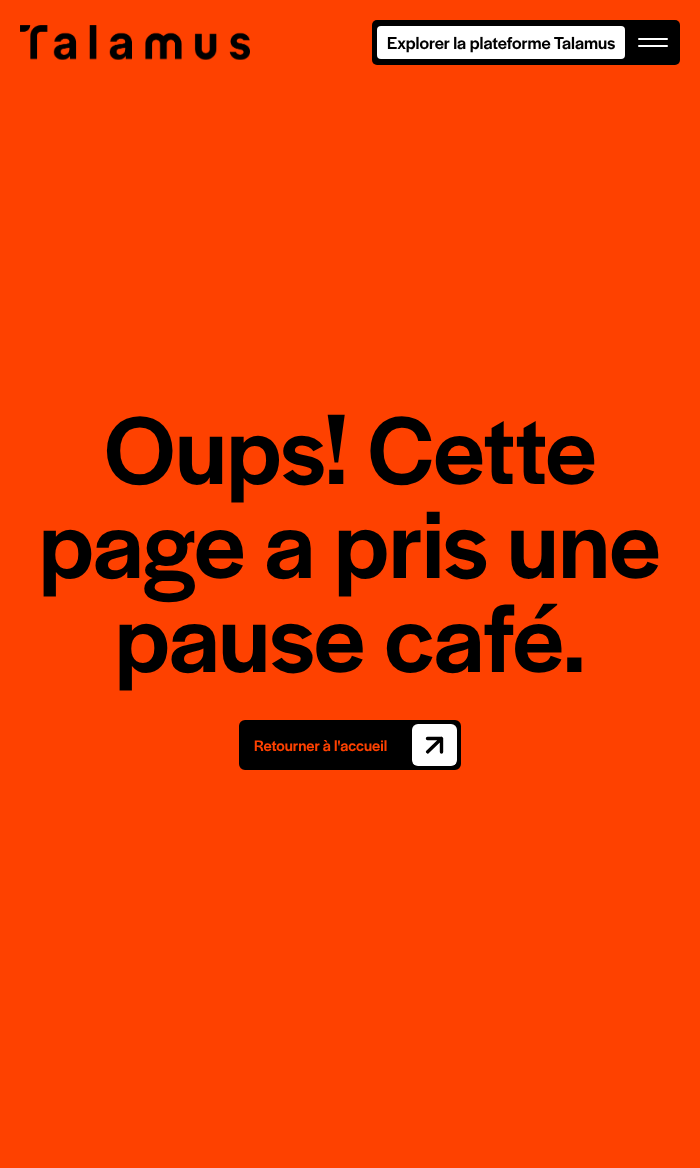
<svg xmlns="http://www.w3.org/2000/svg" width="700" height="1168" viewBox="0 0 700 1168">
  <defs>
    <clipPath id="clip1"><path d="M418 744.5L434 728.5L451.5 745.5L435 761.5Z"/></clipPath>
  </defs>
  <rect width="100%" height="100%" fill="#fe4100"/>
  <image x="20" y="25" width="230" height="35" href="img1.png"/>
  <rect x="372" y="20" width="308" height="45" rx="5" fill="#000000"/>
  <rect x="377" y="26" width="248" height="33" rx="4" fill="#ffffff"/>
  <text x="387" y="49" font-family="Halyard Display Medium" font-size="18" font-weight="500" fill="#000000">Explorer la plateforme Talamus</text>
  <rect x="638" y="38" width="30" height="2" rx="1" fill="#ffffff"/>
  <rect x="638" y="45" width="30" height="2" rx="1" fill="#ffffff"/>
  <text x="104" y="484" font-family="Halyard Display Medium" font-size="100" font-weight="500" fill="#000000">Oups! Cette</text>
  <text x="39" y="578" font-family="Halyard Display Medium" font-size="100" font-weight="500" fill="#000000">page a pris une</text>
  <text x="115" y="672" font-family="Halyard Display Medium" font-size="100" font-weight="500" fill="#000000">pause café.</text>
  <rect x="241" y="722" width="218" height="46" rx="4" fill="#000000" stroke="#000000" stroke-width="4"/>
  <rect x="412" y="724" width="45" height="42" rx="6" fill="#ffffff"/>
  <text x="254" y="751" font-family="Halyard Display Medium" font-size="16" font-weight="500" fill="#fe4100">Retourner à l'accueil</text>
  <g clip-path="url(#clip1)">
    <path d="M427.5 752L441.5 738.5M427.5 738.5H441.5V752" fill="none" stroke="#000000" stroke-width="3.4" stroke-linecap="round" stroke-linejoin="round"/>
  </g>
</svg>
